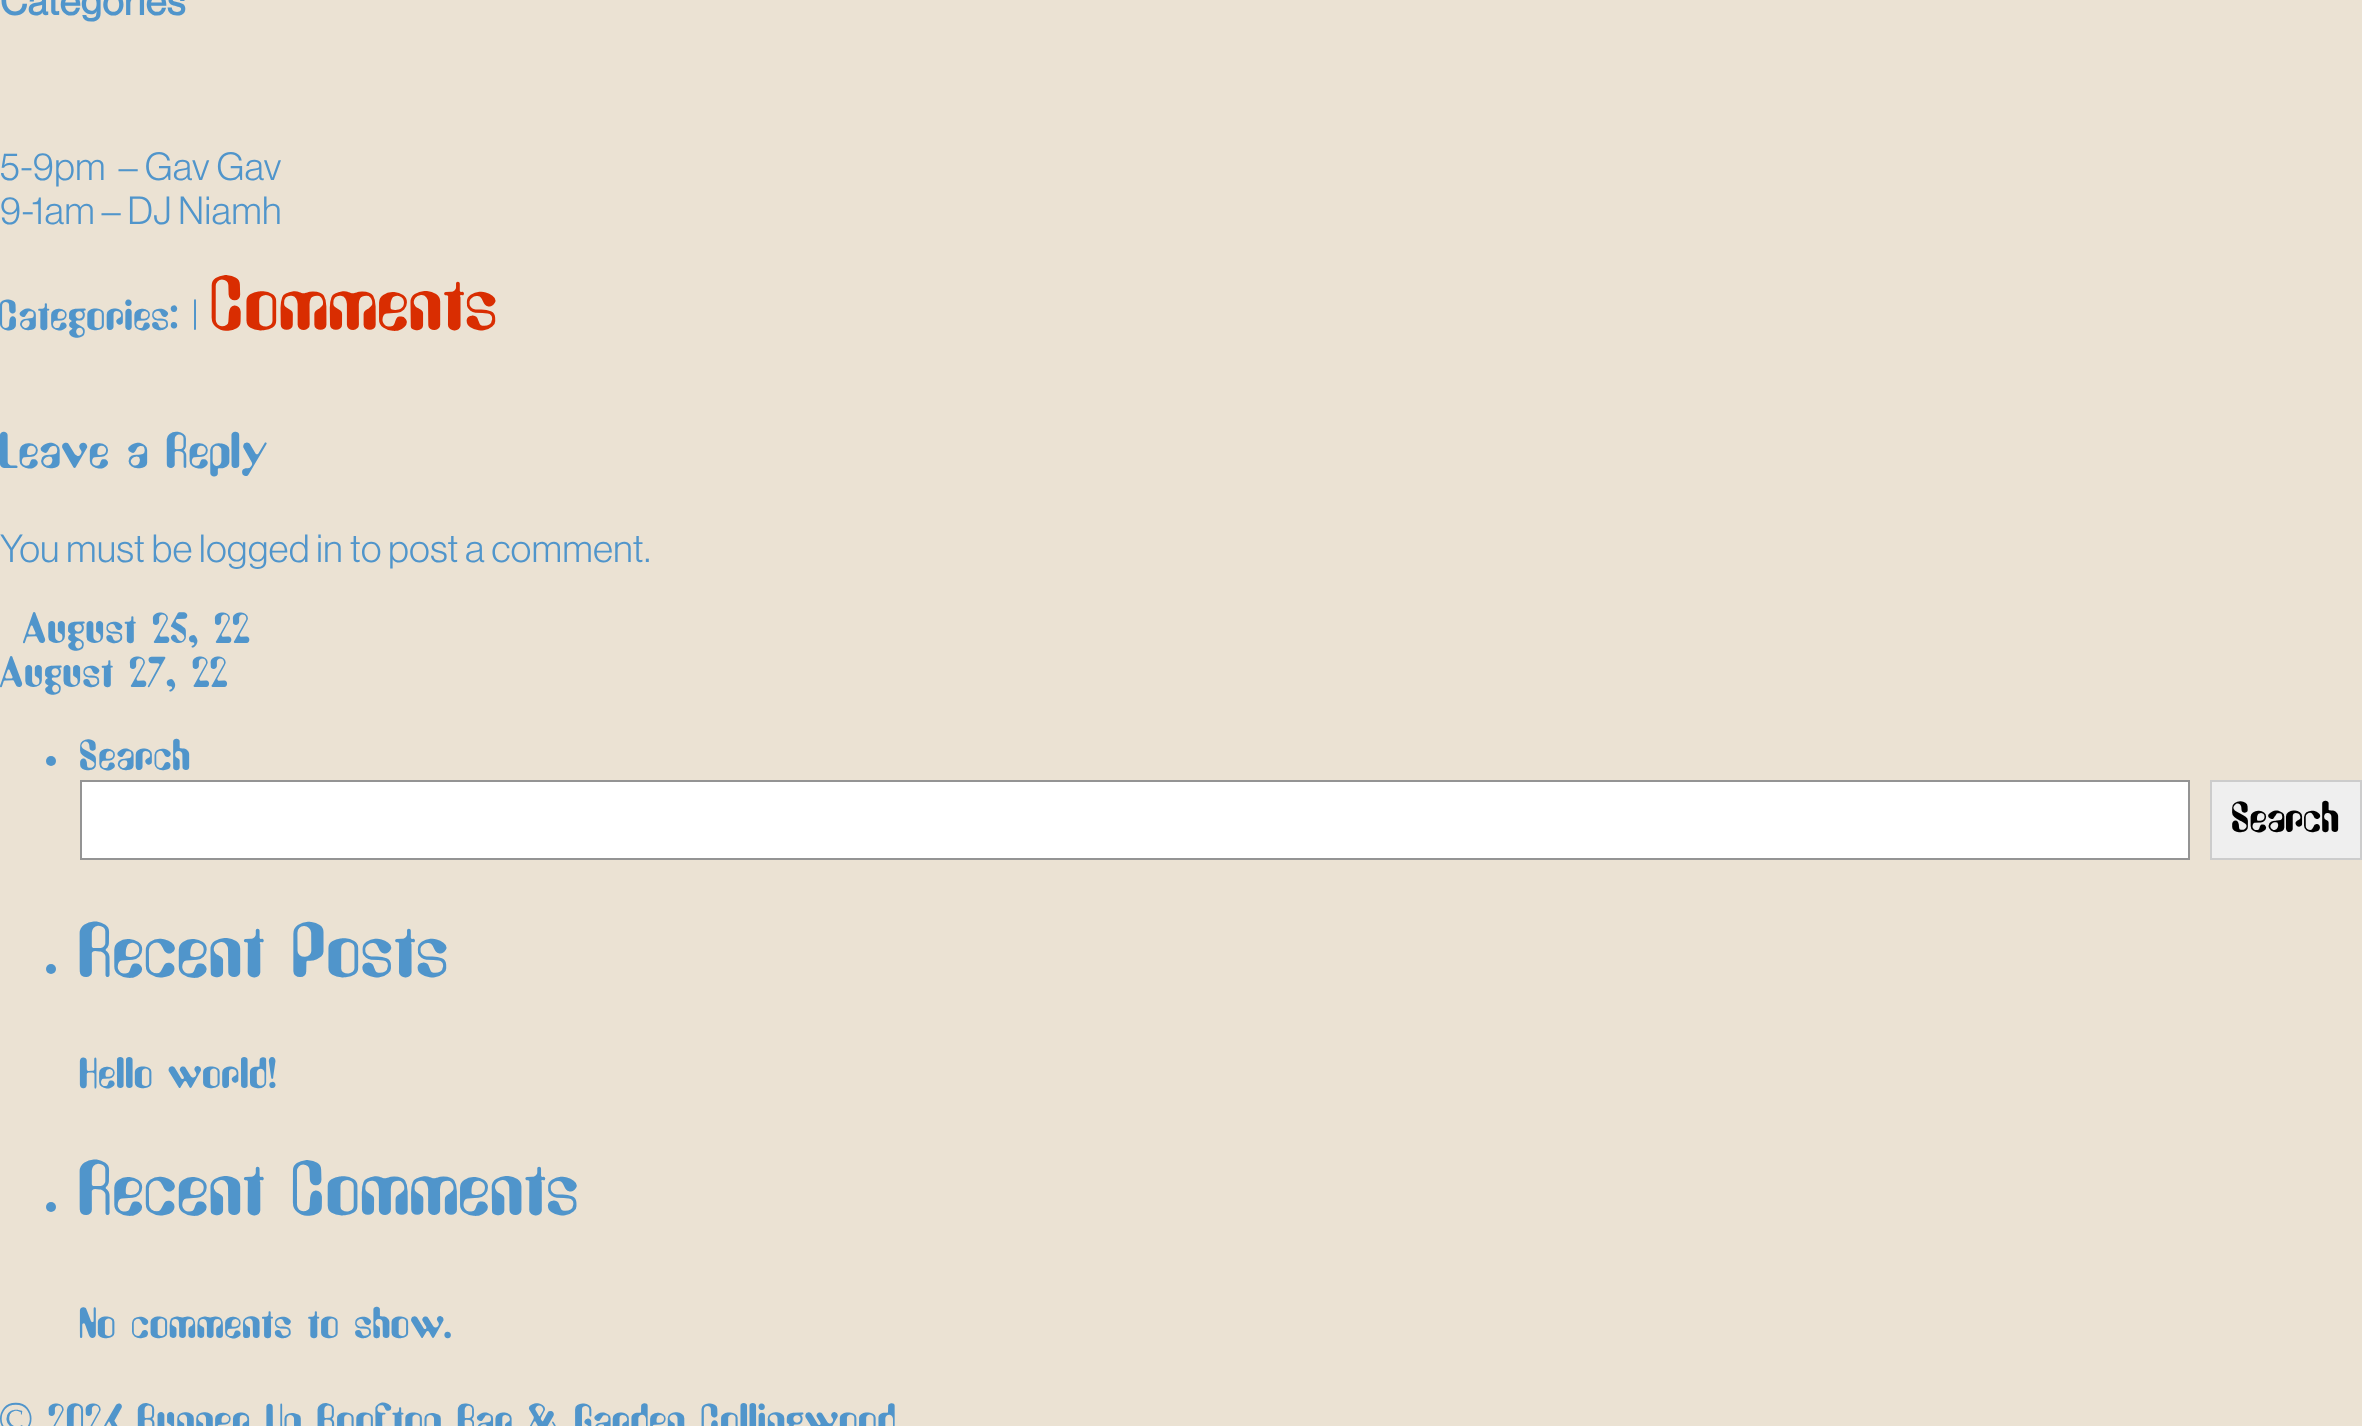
<svg xmlns="http://www.w3.org/2000/svg" width="2362" height="1426" viewBox="0 0 2362 1426">
  <rect width="100%" height="100%" fill="#ebe2d3"/>
  <text x="0" y="15" font-family="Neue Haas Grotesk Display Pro" font-size="38.4" font-weight="bold" letter-spacing="0.6" fill="#5095cb">Categories</text>
  <text x="0" y="180" font-family="Neue Haas Grotesk Display Pro" font-size="38.4" letter-spacing="0.6" fill="#5095cb" xml:space="preserve">5-9pm  – Gav Gav</text>
  <text x="0" y="224" font-family="Neue Haas Grotesk Display Pro" font-size="38.4" letter-spacing="0.6" fill="#5095cb">9-1am – DJ Niamh</text>
  <text x="0" y="330" font-family="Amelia" font-size="38.4" font-weight="100" letter-spacing="0.6" fill="#5095cb">Categories: |</text>
  <text x="212" y="330" font-family="Amelia" font-size="69" font-weight="100" letter-spacing="0.6" fill="#d92d01">Comments</text>
  <text x="0" y="468" font-family="Amelia" font-size="45" font-weight="100" letter-spacing="0.6" fill="#5095cb">Leave a Reply</text>
  <text x="0" y="562" font-family="Neue Haas Grotesk Display Pro" font-size="38.4" letter-spacing="0.6" fill="#5095cb">You must be</text>
  <text x="199" y="562" font-family="Neue Haas Grotesk Display Pro" font-size="38.4" letter-spacing="0.6" fill="#5095cb">logged in</text>
  <text x="350" y="562" font-family="Neue Haas Grotesk Display Pro" font-size="38.4" letter-spacing="0.6" fill="#5095cb">to post a comment.</text>
  <text x="23" y="643" font-family="Amelia" font-size="38.4" font-weight="100" letter-spacing="0.6" fill="#5095cb">August 25, 22</text>
  <text x="0" y="687" font-family="Amelia" font-size="38.4" font-weight="100" letter-spacing="0.6" fill="#5095cb">August 27, 22</text>
  <circle cx="51" cy="761" r="5" fill="#5095cb"/>
  <text x="80" y="770" font-family="Amelia" font-size="38.4" font-weight="100" letter-spacing="0.6" fill="#5095cb">Search</text>
  <rect x="81" y="781" width="2108" height="78" fill="#ffffff" stroke="#949494" stroke-width="2"/>
  <rect x="2211" y="781" width="150" height="78" fill="#efefef" stroke="#cccccc" stroke-width="2"/>
  <text x="2232" y="832" font-family="Amelia" font-size="38.4" font-weight="100" fill="#000000">Search</text>
  <circle cx="51" cy="969" r="5" fill="#5095cb"/>
  <text x="80" y="977" font-family="Amelia" font-size="69" font-weight="100" letter-spacing="0.6" fill="#5095cb">Recent Posts</text>
  <text x="80" y="1088" font-family="Amelia" font-size="38.4" font-weight="100" letter-spacing="0.6" fill="#5095cb">Hello world!</text>
  <circle cx="51" cy="1207" r="5" fill="#5095cb"/>
  <text x="80" y="1215" font-family="Amelia" font-size="69" font-weight="100" letter-spacing="0.6" fill="#5095cb">Recent Comments</text>
  <text x="80" y="1338" font-family="Amelia" font-size="38.4" font-weight="100" letter-spacing="0.6" fill="#5095cb">No comments to show.</text>
  <text x="0" y="1434" font-family="Amelia" font-size="38.4" font-weight="100" letter-spacing="0.6" fill="#5095cb">© 2026 Runner Up Rooftop Bar &amp; Garden Collingwood</text>
</svg>
